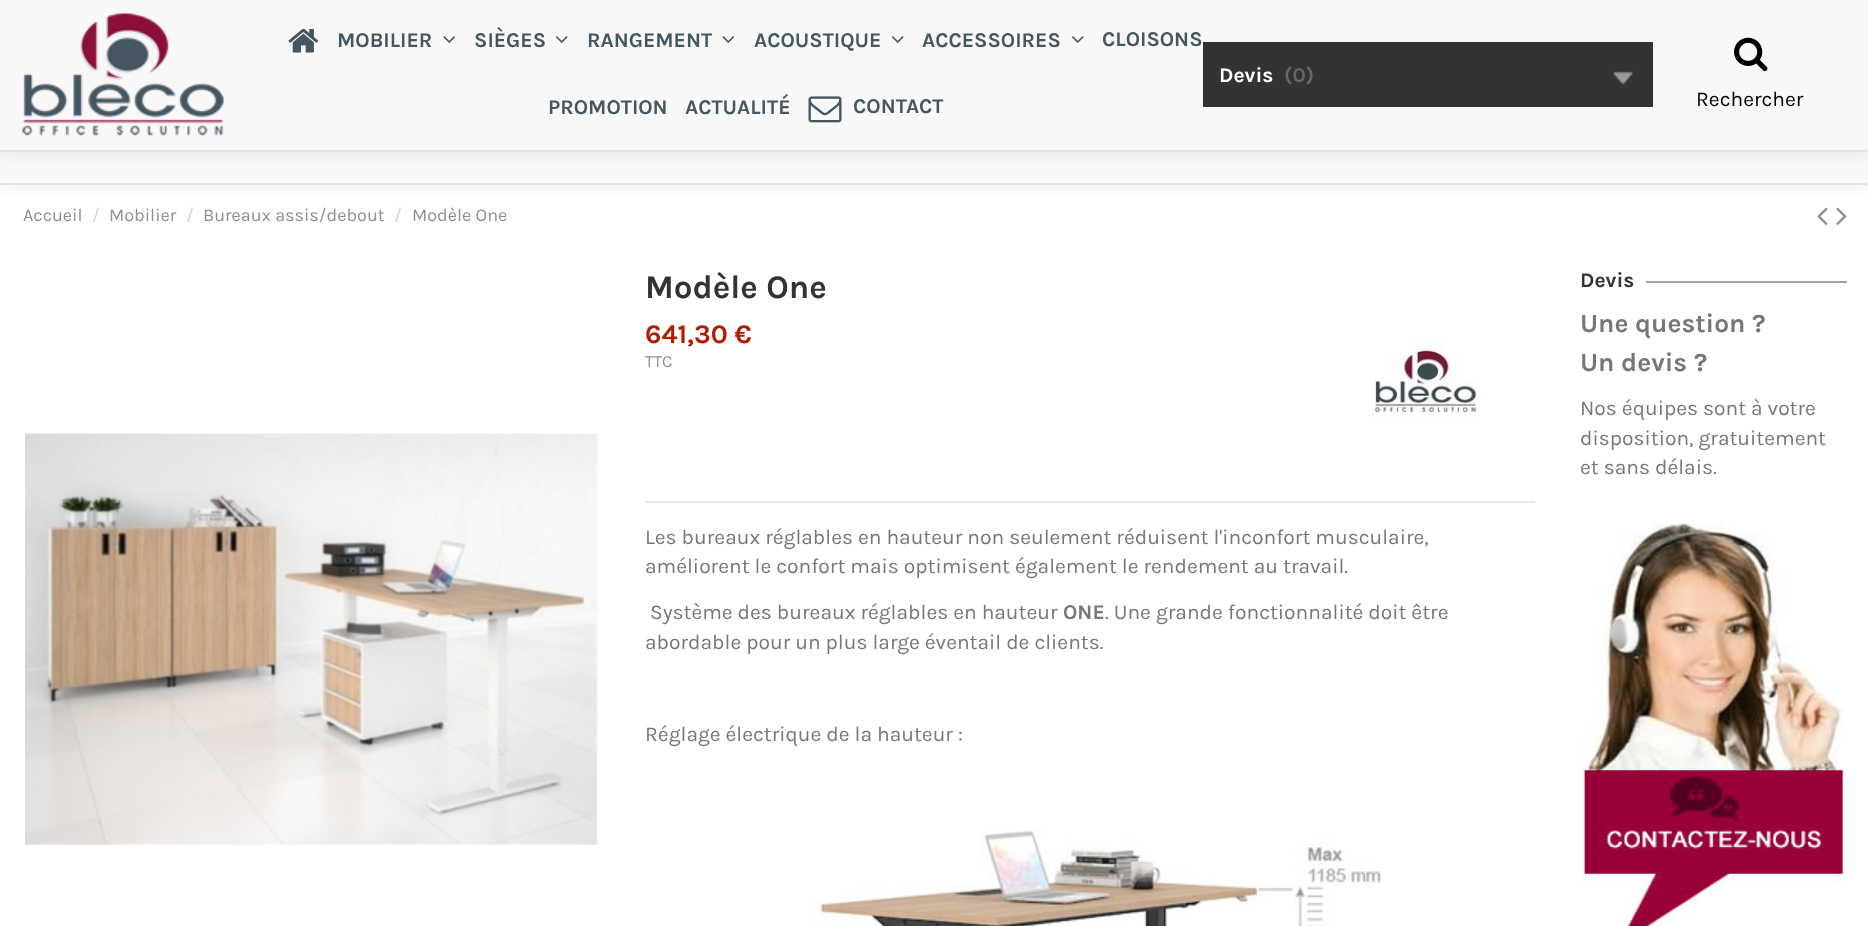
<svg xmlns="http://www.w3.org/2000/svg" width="1868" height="926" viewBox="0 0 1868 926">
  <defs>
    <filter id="blur1" x="-50%" y="-200%" width="200%" height="500%"><feGaussianBlur stdDeviation="8"/></filter>
  </defs>
  <rect width="100%" height="100%" fill="#ffffff"/>
  <rect x="0" y="-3" width="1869" height="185" fill="#3d3939" fill-opacity="0.17" filter="url(#blur1)"/>
  <rect x="0" y="152" width="1868" height="31" fill="#f8f8f8"/>
  <rect x="0" y="183" width="1868" height="2" fill="#e3e3e3"/>
  <rect x="0" y="-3" width="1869" height="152" fill="#3d3939" fill-opacity="0.17" filter="url(#blur1)"/>
  <rect x="0" y="0" width="1868" height="150" fill="#f8f8f8"/>
  <rect x="0" y="150" width="1868" height="2" fill="#e3e3e3"/>
  <image x="22" y="13" width="202" height="123" href="img1.png"/>
  <image x="288" y="28" width="31" height="25" href="img2.png"/>
  <text x="337" y="47" font-family="Karla" font-size="21" font-weight="bold" fill="#465660">MOBILIER</text>
  <image x="443" y="36" width="12" height="7" href="img3.png"/>
  <text x="474" y="47" font-family="Karla" font-size="21" font-weight="bold" fill="#465660">SIÈGES</text>
  <image x="556" y="36" width="12" height="7" href="img4.png"/>
  <text x="587" y="47" font-family="Karla" font-size="21" font-weight="bold" fill="#465660">RANGEMENT</text>
  <image x="722" y="36" width="12" height="7" href="img3.png"/>
  <text x="754" y="47" font-family="Karla" font-size="21" font-weight="bold" fill="#465660">ACOUSTIQUE</text>
  <image x="892" y="36" width="12" height="7" href="img4.png"/>
  <text x="922" y="47" font-family="Karla" font-size="21" font-weight="bold" fill="#465660">ACCESSOIRES</text>
  <image x="1072" y="36" width="12" height="7" href="img4.png"/>
  <text x="1102" y="46" font-family="Karla" font-size="21" font-weight="bold" fill="#465660">CLOISONS</text>
  <text x="548" y="114" font-family="Karla" font-size="21" font-weight="bold" fill="#465660">PROMOTION</text>
  <text x="685" y="114" font-family="Karla" font-size="21" font-weight="bold" fill="#465660">ACTUALITÉ</text>
  <image x="808" y="96" width="34" height="27" href="img5.png"/>
  <text x="853" y="113" font-family="Karla" font-size="21" font-weight="bold" fill="#465660">CONTACT</text>
  <rect x="1203" y="42" width="450" height="65" fill="#333333"/>
  <text x="1219" y="82" font-family="Karla" font-size="21" font-weight="bold" fill="#ffffff">Devis</text>
  <text x="1284" y="82" font-family="Karla" font-size="21" font-weight="bold" fill="#686666">(0)</text>
  <image x="1612" y="71" width="21" height="14" href="img6.png"/>
  <image x="1734" y="37" width="34" height="35" href="img7.png"/>
  <text x="1696" y="106" font-family="Karla" font-size="21" fill="#000000">Rechercher</text>
  <text x="23" y="221" font-family="Karla" font-size="18" fill="#8f8f8f">Accueil</text>
  <text x="92" y="221" font-family="Karla" font-size="18" fill="#d2d2d2">/</text>
  <text x="109" y="221" font-family="Karla" font-size="18" fill="#8f8f8f">Mobilier</text>
  <text x="186" y="221" font-family="Karla" font-size="18" fill="#d2d2d2">/</text>
  <text x="203" y="221" font-family="Karla" font-size="18" fill="#8f8f8f">Bureaux assis/debout</text>
  <text x="394" y="221" font-family="Karla" font-size="18" fill="#d2d2d2">/</text>
  <text x="412" y="221" font-family="Karla" font-size="18" fill="#8f8f8f">Modèle One</text>
  <image x="1817" y="207" width="11" height="18" href="img8.png"/>
  <image x="1836" y="207" width="11" height="19" href="img9.png"/>
  <rect x="645" y="501" width="890" height="2" fill="#e8e8e8"/>
  <text x="645" y="298" font-family="Karla" font-size="33" font-weight="bold" fill="#333333">Modèle One</text>
  <text x="645" y="343" font-family="Karla" font-size="27" font-weight="bold" fill="#ad1f00">641,30 €</text>
  <text x="645" y="367" font-family="Karla" font-size="17" fill="#8f8f8f">TTC</text>
  <image x="1374" y="337" width="103" height="81" href="img10.png"/>
  <text x="645" y="544" font-family="Karla" font-size="21" fill="#777777">Les bureaux réglables en hauteur non seulement réduisent l'inconfort musculaire,</text>
  <text x="645" y="573" font-family="Karla" font-size="21" fill="#777777">améliorent le confort mais optimisent également le rendement au travail.</text>
  <text x="650" y="619" font-family="Karla" font-size="21" fill="#777777">Système des bureaux réglables en hauteur</text>
  <text x="1063" y="619" font-family="Karla" font-size="21" font-weight="bold" fill="#777777">ONE</text>
  <text x="1105" y="619" font-family="Karla" font-size="21" fill="#777777">. Une grande fonctionnalité doit être</text>
  <text x="645" y="649" font-family="Karla" font-size="21" fill="#777777">abordable pour un plus large éventail de clients.</text>
  <text x="645" y="741" font-family="Karla" font-size="21" fill="#777777">Réglage électrique de la hauteur :</text>
  <image x="813" y="830" width="569" height="96" href="img11.png"/>
  <text x="1580" y="287" font-family="Karla" font-size="21" font-weight="bold" fill="#333333">Devis</text>
  <rect x="1646" y="281" width="201" height="2" fill="#a1a1a1"/>
  <text x="1580" y="332" font-family="Karla" font-size="26.25" font-weight="bold" fill="#777777">Une question ?</text>
  <text x="1580" y="371" font-family="Karla" font-size="26.25" font-weight="bold" fill="#777777">Un devis ?</text>
  <text x="1580" y="415" font-family="Karla" font-size="21" fill="#777777">Nos équipes sont à votre</text>
  <text x="1580" y="445" font-family="Karla" font-size="21" fill="#777777">disposition, gratuitement</text>
  <text x="1580" y="474" font-family="Karla" font-size="21" fill="#777777">et sans délais.</text>
  <image x="1579" y="523" width="268" height="403" href="img12.png"/>
  <image x="25" y="433" width="573" height="413" href="img13.png"/>
</svg>
